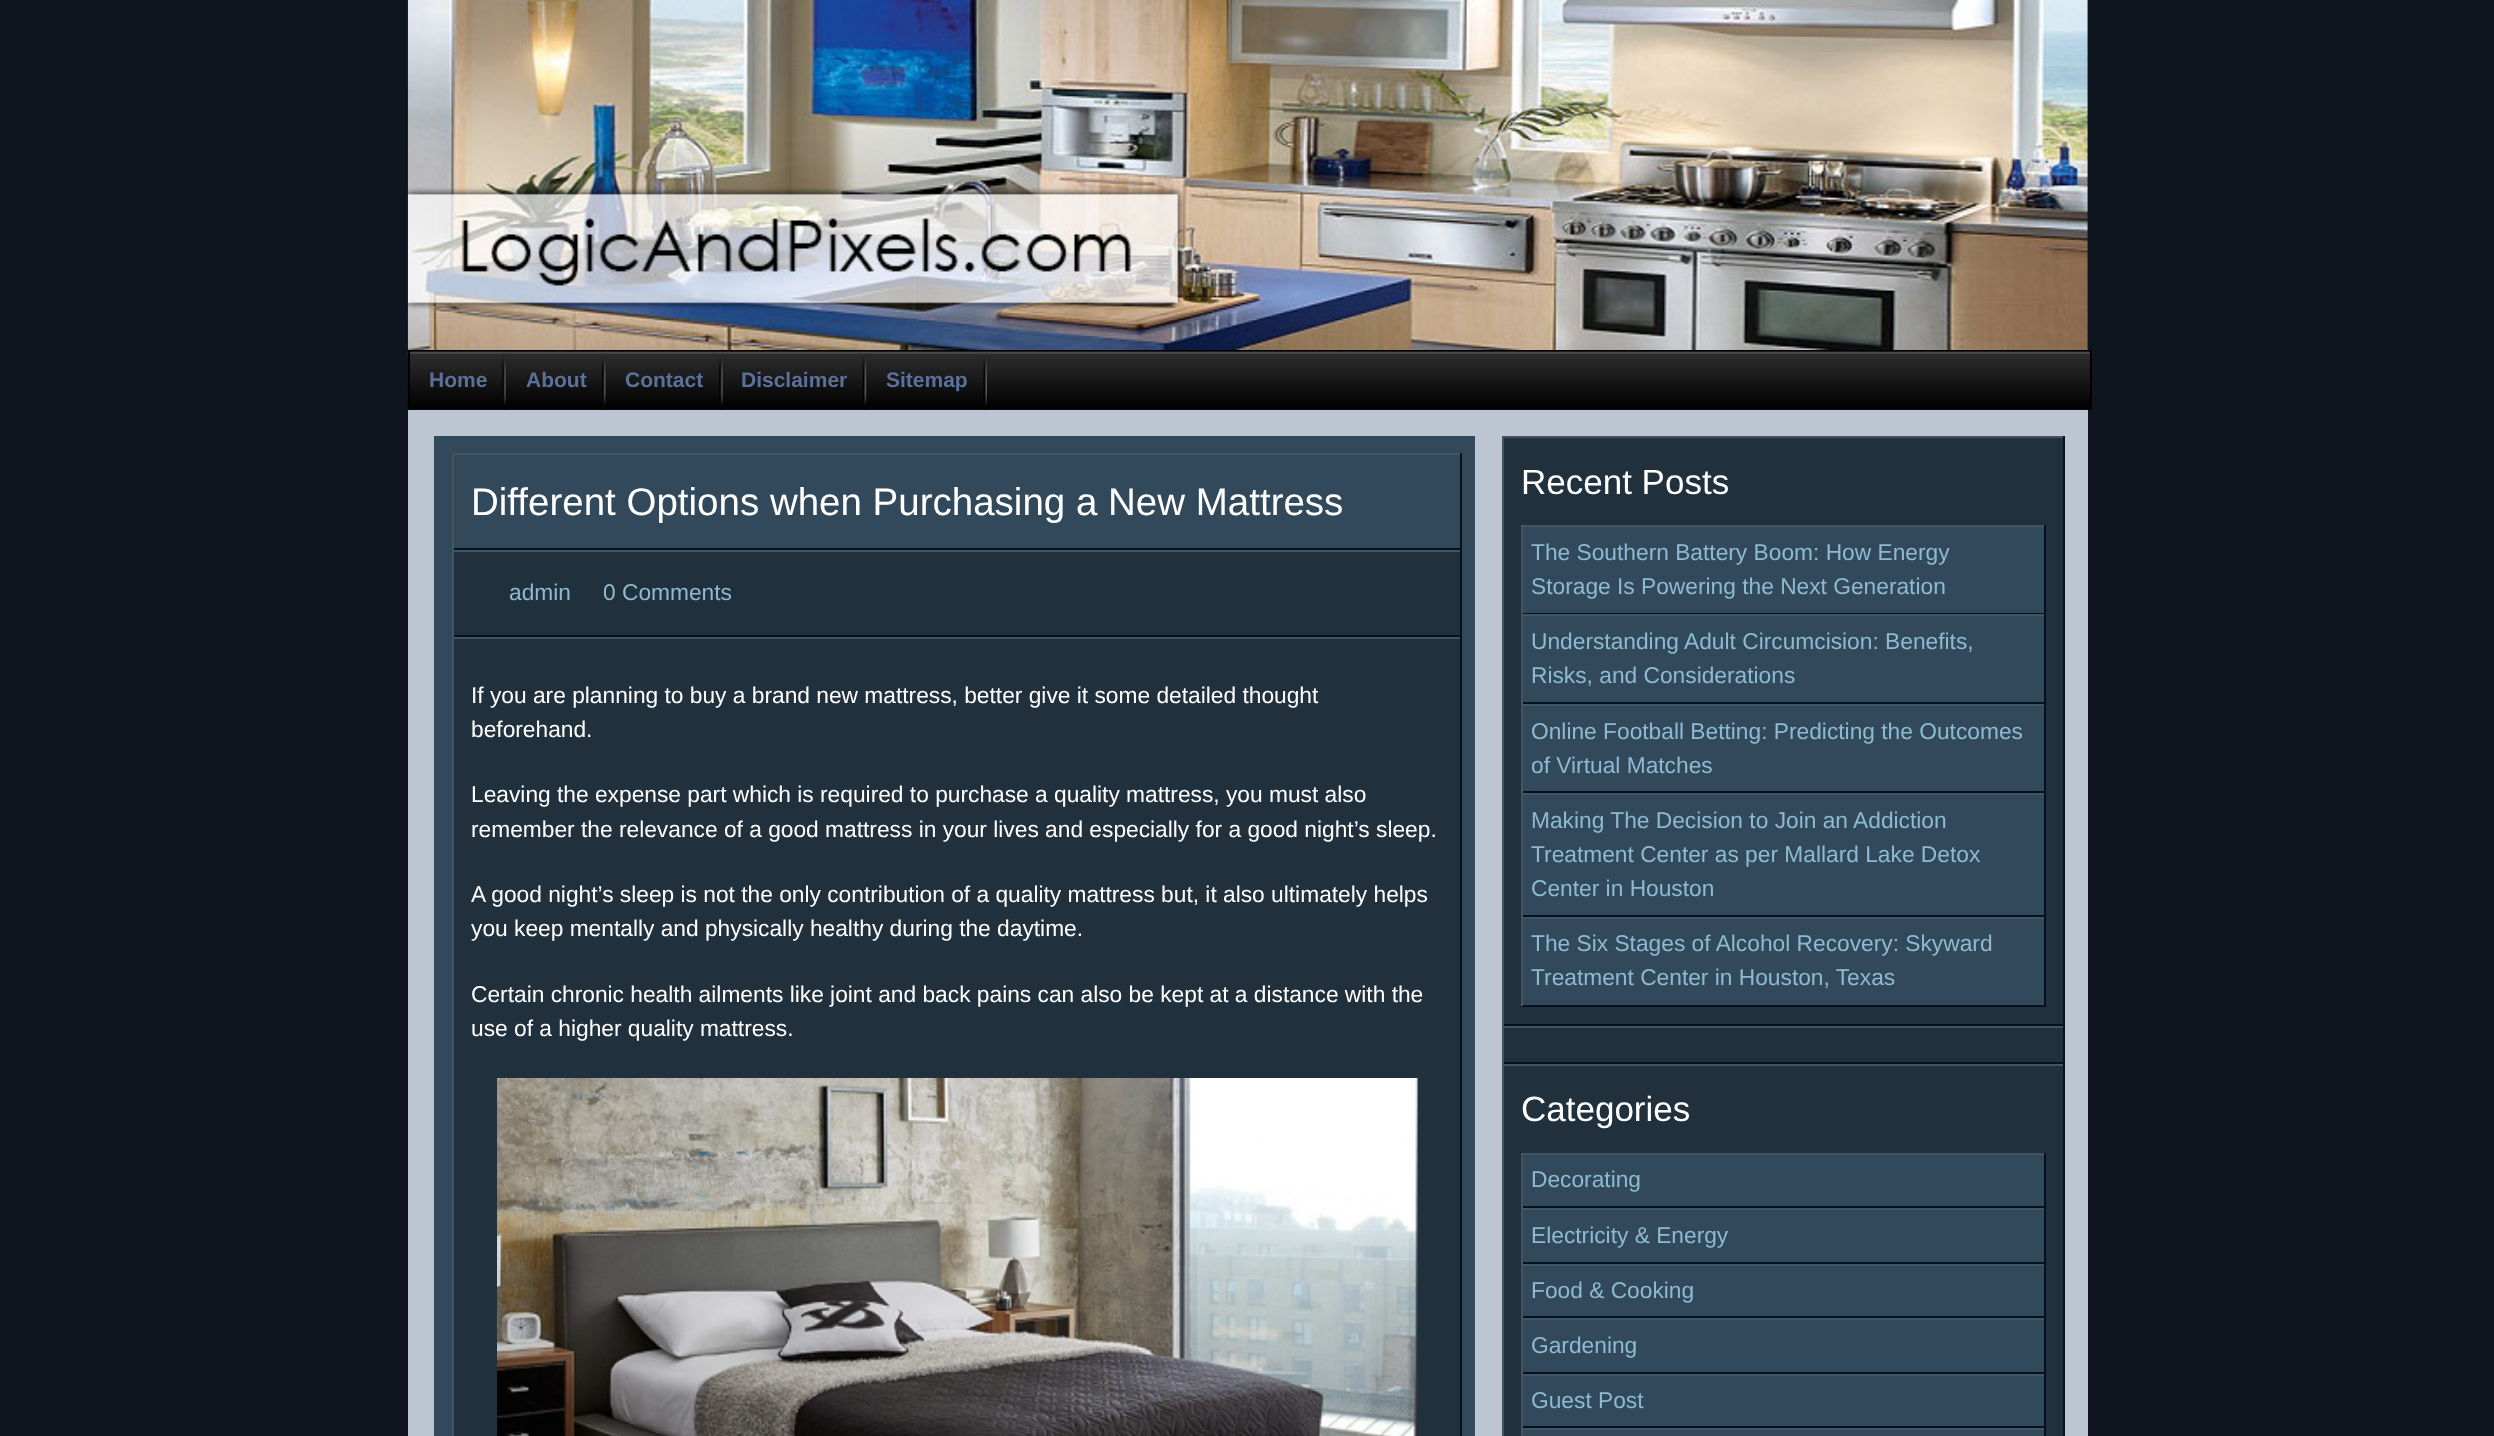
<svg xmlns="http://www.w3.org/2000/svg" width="2494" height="1436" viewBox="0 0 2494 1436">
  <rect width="100%" height="100%" fill="#0e151f"/>
  <image x="407" y="0" width="1681" height="350" href="img1.png"/>
  <image x="407" y="350" width="1683" height="60" href="img2.png"/>
  <rect x="2090" y="350" width="2" height="60" fill="#000000"/>
  <rect x="408" y="350" width="2" height="60" fill="#000000"/>
  <image x="502" y="350" width="4" height="60" href="img3.png"/>
  <text x="429" y="387" font-family="Liberation Sans" font-size="21" font-weight="bold" fill="#5b709b">Home</text>
  <image x="602" y="350" width="4" height="60" href="img4.png"/>
  <text x="526" y="387" font-family="Liberation Sans" font-size="21" font-weight="bold" fill="#5b709b">About</text>
  <image x="719" y="350" width="4" height="60" href="img3.png"/>
  <text x="625" y="387" font-family="Liberation Sans" font-size="21" font-weight="bold" fill="#5b709b">Contact</text>
  <image x="862" y="350" width="5" height="60" href="img5.png"/>
  <text x="741" y="387" font-family="Liberation Sans" font-size="21" font-weight="bold" fill="#5b709b">Disclaimer</text>
  <image x="983" y="350" width="4" height="60" href="img6.png"/>
  <text x="886" y="387" font-family="Liberation Sans" font-size="21" font-weight="bold" fill="#5b709b">Sitemap</text>
  <rect x="408" y="410" width="1680" height="1026" fill="#bdc5d2"/>
  <rect x="434" y="436" width="1041" height="1000" fill="#32495b"/>
  <rect x="452" y="453" width="1009" height="2" fill="#445463"/>
  <rect x="1460" y="453" width="2" height="97" fill="#021221"/>
  <rect x="452" y="548" width="1009" height="2" fill="#021221"/>
  <rect x="452" y="453" width="2" height="97" fill="#445463"/>
  <text x="471" y="515" font-family="Liberation Sans" font-size="38.5" fill="#ffffff">Different Options when Purchasing a New Mattress</text>
  <rect x="454" y="552" width="1006" height="83" fill="#20303d"/>
  <rect x="452" y="550" width="1009" height="2" fill="#445463"/>
  <rect x="1460" y="550" width="2" height="87" fill="#021221"/>
  <rect x="452" y="635" width="1009" height="2" fill="#021221"/>
  <rect x="452" y="550" width="2" height="87" fill="#445463"/>
  <text x="509" y="600" font-family="Liberation Sans" font-size="22.75" fill="#8dbad1">admin</text>
  <text x="603" y="600" font-family="Liberation Sans" font-size="22.75" fill="#8dbad1">0 Comments</text>
  <rect x="454" y="639" width="1006" height="797" fill="#20303d"/>
  <rect x="452" y="637" width="1009" height="2" fill="#445463"/>
  <rect x="1460" y="637" width="2" height="799" fill="#021221"/>
  <rect x="452" y="637" width="2" height="799" fill="#445463"/>
  <text x="471" y="703" font-family="Liberation Sans" font-size="22.75" fill="#ffffff">If you are planning to buy a brand new mattress, better give it some detailed thought</text>
  <text x="471" y="737" font-family="Liberation Sans" font-size="22.75" fill="#ffffff">beforehand.</text>
  <text x="471" y="802" font-family="Liberation Sans" font-size="22.75" fill="#ffffff">Leaving the expense part which is required to purchase a quality mattress, you must also</text>
  <text x="471" y="837" font-family="Liberation Sans" font-size="22.75" fill="#ffffff">remember the relevance of a good mattress in your lives and especially for a good night’s sleep.</text>
  <text x="471" y="902" font-family="Liberation Sans" font-size="22.75" fill="#ffffff">A good night’s sleep is not the only contribution of a quality mattress but, it also ultimately helps</text>
  <text x="471" y="936" font-family="Liberation Sans" font-size="22.75" fill="#ffffff">you keep mentally and physically healthy during the daytime.</text>
  <text x="471" y="1002" font-family="Liberation Sans" font-size="22.75" fill="#ffffff">Certain chronic health ailments like joint and back pains can also be kept at a distance with the</text>
  <text x="471" y="1036" font-family="Liberation Sans" font-size="22.75" fill="#ffffff">use of a higher quality mattress.</text>
  <image x="497" y="1078" width="921" height="358" href="img7.png"/>
  <rect x="1504" y="438" width="559" height="586" fill="#20303d"/>
  <rect x="1502" y="436" width="563" height="2" fill="#445463"/>
  <rect x="2063" y="436" width="2" height="590" fill="#021221"/>
  <rect x="1502" y="1024" width="563" height="2" fill="#021221"/>
  <rect x="1502" y="436" width="2" height="590" fill="#445463"/>
  <text x="1521" y="494" font-family="Liberation Sans" font-size="35" fill="#ffffff">Recent Posts</text>
  <rect x="1523" y="527" width="521" height="86" fill="#32495b"/>
  <rect x="1521" y="525" width="525" height="2" fill="#445463"/>
  <rect x="2044" y="525" width="2" height="89" fill="#021221"/>
  <rect x="1521" y="613" width="525" height="1" fill="#021221"/>
  <rect x="1521" y="525" width="2" height="89" fill="#445463"/>
  <text x="1531" y="560" font-family="Liberation Sans" font-size="22.75" fill="#8dbad1">The Southern Battery Boom: How Energy</text>
  <text x="1531" y="594" font-family="Liberation Sans" font-size="22.75" fill="#8dbad1">Storage Is Powering the Next Generation</text>
  <rect x="1523" y="616" width="521" height="86" fill="#32495b"/>
  <rect x="1521" y="614" width="525" height="2" fill="#445463"/>
  <rect x="2044" y="614" width="2" height="90" fill="#021221"/>
  <rect x="1521" y="702" width="525" height="2" fill="#021221"/>
  <rect x="1521" y="614" width="2" height="90" fill="#445463"/>
  <text x="1531" y="649" font-family="Liberation Sans" font-size="22.75" fill="#8dbad1">Understanding Adult Circumcision: Benefits,</text>
  <text x="1531" y="683" font-family="Liberation Sans" font-size="22.75" fill="#8dbad1">Risks, and Considerations</text>
  <rect x="1523" y="706" width="521" height="85" fill="#32495b"/>
  <rect x="1521" y="704" width="525" height="2" fill="#445463"/>
  <rect x="2044" y="704" width="2" height="89" fill="#021221"/>
  <rect x="1521" y="791" width="525" height="2" fill="#021221"/>
  <rect x="1521" y="704" width="2" height="89" fill="#445463"/>
  <text x="1531" y="739" font-family="Liberation Sans" font-size="22.75" fill="#8dbad1">Online Football Betting: Predicting the Outcomes</text>
  <text x="1531" y="773" font-family="Liberation Sans" font-size="22.75" fill="#8dbad1">of Virtual Matches</text>
  <rect x="1523" y="795" width="521" height="120" fill="#32495b"/>
  <rect x="1521" y="793" width="525" height="2" fill="#445463"/>
  <rect x="2044" y="793" width="2" height="124" fill="#021221"/>
  <rect x="1521" y="915" width="525" height="2" fill="#021221"/>
  <rect x="1521" y="793" width="2" height="124" fill="#445463"/>
  <text x="1531" y="828" font-family="Liberation Sans" font-size="22.75" fill="#8dbad1">Making The Decision to Join an Addiction</text>
  <text x="1531" y="862" font-family="Liberation Sans" font-size="22.75" fill="#8dbad1">Treatment Center as per Mallard Lake Detox</text>
  <text x="1531" y="896" font-family="Liberation Sans" font-size="22.75" fill="#8dbad1">Center in Houston</text>
  <rect x="1523" y="919" width="521" height="86" fill="#32495b"/>
  <rect x="1521" y="917" width="525" height="2" fill="#445463"/>
  <rect x="2044" y="917" width="2" height="89" fill="#021221"/>
  <rect x="1521" y="1005" width="525" height="2" fill="#021221"/>
  <rect x="1521" y="917" width="2" height="89" fill="#445463"/>
  <text x="1531" y="951" font-family="Liberation Sans" font-size="22.75" fill="#8dbad1">The Six Stages of Alcohol Recovery: Skyward</text>
  <text x="1531" y="985" font-family="Liberation Sans" font-size="22.75" fill="#8dbad1">Treatment Center in Houston, Texas</text>
  <rect x="1504" y="1028" width="559" height="34" fill="#20303d"/>
  <rect x="1502" y="1026" width="563" height="2" fill="#445463"/>
  <rect x="2063" y="1026" width="2" height="38" fill="#021221"/>
  <rect x="1502" y="1062" width="563" height="2" fill="#021221"/>
  <rect x="1502" y="1026" width="2" height="38" fill="#445463"/>
  <rect x="1504" y="1066" width="559" height="370" fill="#20303d"/>
  <rect x="1502" y="1064" width="563" height="2" fill="#445463"/>
  <rect x="2063" y="1064" width="2" height="372" fill="#021221"/>
  <rect x="1502" y="1064" width="2" height="372" fill="#445463"/>
  <text x="1521" y="1121" font-family="Liberation Sans" font-size="35" fill="#ffffff">Categories</text>
  <rect x="1523" y="1155" width="521" height="51" fill="#32495b"/>
  <rect x="1521" y="1153" width="525" height="2" fill="#445463"/>
  <rect x="2044" y="1153" width="2" height="55" fill="#021221"/>
  <rect x="1521" y="1206" width="525" height="2" fill="#021221"/>
  <rect x="1521" y="1153" width="2" height="55" fill="#445463"/>
  <text x="1531" y="1187" font-family="Liberation Sans" font-size="22.75" fill="#8dbad1">Decorating</text>
  <rect x="1523" y="1210" width="521" height="52" fill="#32495b"/>
  <rect x="1521" y="1208" width="525" height="2" fill="#445463"/>
  <rect x="2044" y="1208" width="2" height="56" fill="#021221"/>
  <rect x="1521" y="1262" width="525" height="2" fill="#021221"/>
  <rect x="1521" y="1208" width="2" height="56" fill="#445463"/>
  <text x="1531" y="1243" font-family="Liberation Sans" font-size="22.75" fill="#8dbad1">Electricity &amp; Energy</text>
  <rect x="1523" y="1266" width="521" height="50" fill="#32495b"/>
  <rect x="1521" y="1264" width="525" height="2" fill="#445463"/>
  <rect x="2044" y="1264" width="2" height="54" fill="#021221"/>
  <rect x="1521" y="1316" width="525" height="2" fill="#021221"/>
  <rect x="1521" y="1264" width="2" height="54" fill="#445463"/>
  <text x="1531" y="1298" font-family="Liberation Sans" font-size="22.75" fill="#8dbad1">Food &amp; Cooking</text>
  <rect x="1523" y="1320" width="521" height="52" fill="#32495b"/>
  <rect x="1521" y="1318" width="525" height="2" fill="#445463"/>
  <rect x="2044" y="1318" width="2" height="56" fill="#021221"/>
  <rect x="1521" y="1372" width="525" height="2" fill="#021221"/>
  <rect x="1521" y="1318" width="2" height="56" fill="#445463"/>
  <text x="1531" y="1353" font-family="Liberation Sans" font-size="22.75" fill="#8dbad1">Gardening</text>
  <rect x="1523" y="1376" width="521" height="50" fill="#32495b"/>
  <rect x="1521" y="1374" width="525" height="2" fill="#445463"/>
  <rect x="2044" y="1374" width="2" height="54" fill="#021221"/>
  <rect x="1521" y="1426" width="525" height="2" fill="#021221"/>
  <rect x="1521" y="1374" width="2" height="54" fill="#445463"/>
  <text x="1531" y="1408" font-family="Liberation Sans" font-size="22.75" fill="#8dbad1">Guest Post</text>
  <rect x="1521" y="1430" width="525" height="6" fill="#32495b"/>
  <rect x="1521" y="1428" width="525" height="2" fill="#445463"/>
  <rect x="2044" y="1428" width="2" height="8" fill="#021221"/>
  <rect x="1521" y="1428" width="2" height="8" fill="#445463"/>
</svg>
